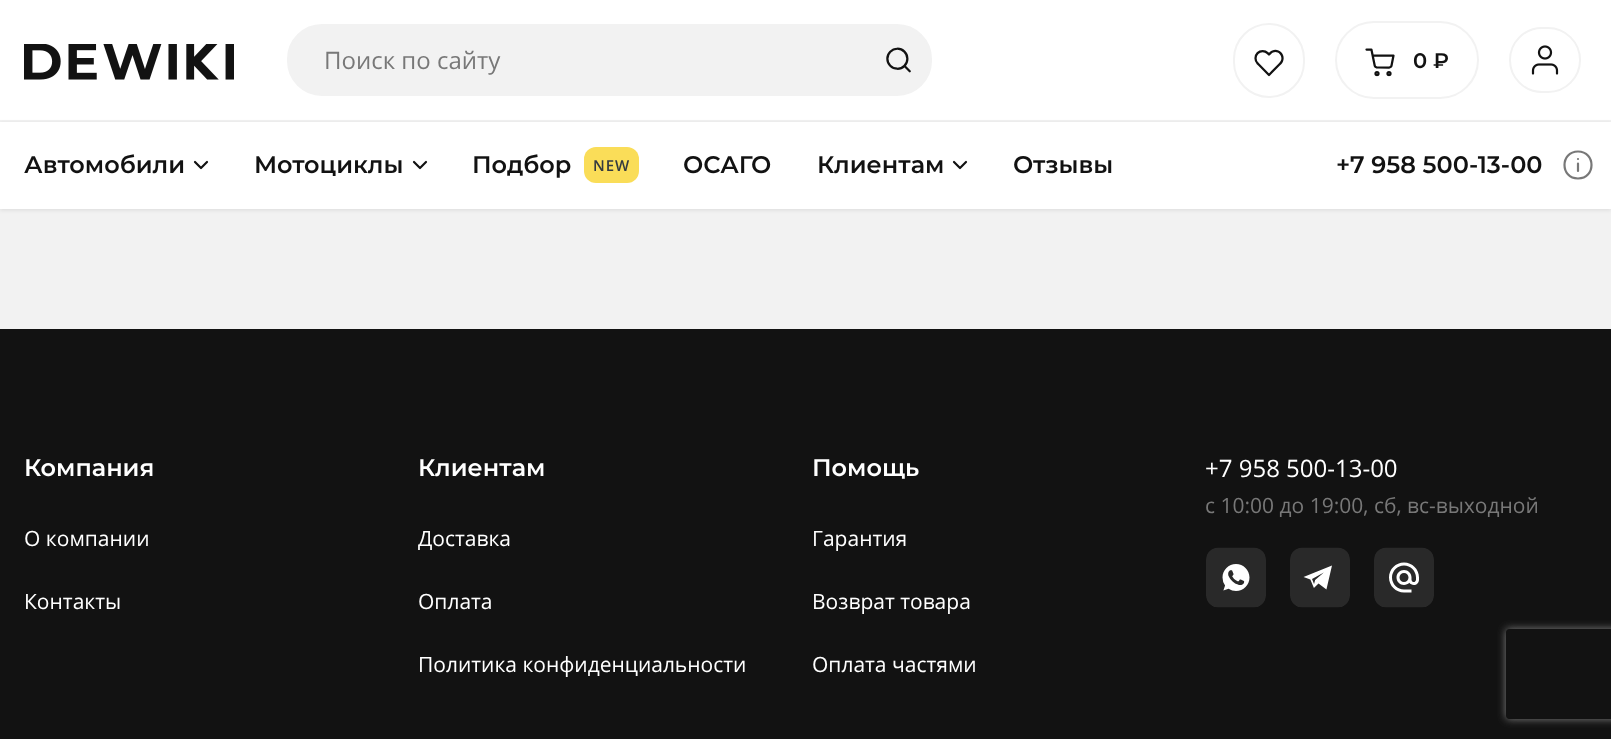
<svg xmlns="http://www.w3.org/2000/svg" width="1611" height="739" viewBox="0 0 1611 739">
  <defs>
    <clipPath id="clip1"><path d="M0 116H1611V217H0ZM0 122H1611V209H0Z" clip-rule="evenodd"/></clipPath>
    <filter id="blur1" x="-50%" y="-200%" width="200%" height="500%"><feGaussianBlur stdDeviation="2"/></filter>
    <clipPath id="clip2"><path d="M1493 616H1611V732H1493ZM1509 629H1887C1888.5 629 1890 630.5 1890 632V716C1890 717.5 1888.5 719 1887 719H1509C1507.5 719 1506 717.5 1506 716V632C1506 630.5 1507.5 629 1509 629Z" clip-rule="evenodd"/></clipPath>
    <filter id="blur2" x="-50%" y="-200%" width="200%" height="500%"><feGaussianBlur stdDeviation="4"/></filter>
  </defs>
  <rect width="100%" height="100%" fill="#f2f2f2"/>
  <rect x="0" y="0" width="1611" height="209" fill="#ffffff"/>
  <rect x="0" y="120" width="1611" height="2" fill="#f2f2f2"/>
  <image x="24" y="44" width="210" height="36" href="img1.png"/>
  <rect x="288" y="25" width="643" height="70" rx="34" fill="#f2f2f2" stroke="#f2f2f2" stroke-width="2"/>
  <text x="324" y="69" font-family="Open Sans" font-size="24" fill="#787878">Поиск по сайту</text>
  <image x="886" y="47" width="25" height="26" href="img2.png"/>
  <rect x="1234" y="24" width="70" height="73" rx="35" fill="none" stroke="#f2f2f2" stroke-width="2"/>
  <image x="1254" y="49" width="30" height="28" href="img3.png"/>
  <rect x="1336" y="22" width="142" height="76" rx="38" fill="none" stroke="#f2f2f2" stroke-width="2"/>
  <image x="1365" y="48" width="30" height="29" href="img4.png"/>
  <text x="1413" y="68" font-family="Montserrat" font-size="21" font-weight="600" fill="#121212">0 ₽</text>
  <rect x="1510" y="28" width="70" height="64" rx="32" fill="none" stroke="#f2f2f2" stroke-width="2"/>
  <image x="1531" y="45" width="28" height="30" href="img5.png"/>
  <g clip-path="url(#clip1)">
    <rect x="0" y="123" width="1611" height="87" fill="#000000" fill-opacity="0.1" filter="url(#blur1)"/>
  </g>
  <text x="24" y="173" font-family="Montserrat" font-size="24" font-weight="600" fill="#121212">Автомобили</text>
  <path d="M195 162L201 168L207 162" fill="none" stroke="#121212" stroke-width="2.2" stroke-linecap="round" stroke-linejoin="round"/>
  <text x="254" y="173" font-family="Montserrat" font-size="24" font-weight="600" fill="#121212">Мотоциклы</text>
  <path d="M414 162L420 168L426 162" fill="none" stroke="#121212" stroke-width="2.2" stroke-linecap="round" stroke-linejoin="round"/>
  <text x="472" y="173" font-family="Montserrat" font-size="24" font-weight="600" fill="#121212">Подбор</text>
  <rect x="584" y="147" width="55" height="36" rx="12" fill="#fadd58"/>
  <text x="593" y="171" font-family="Open Sans" font-size="15" font-weight="600" letter-spacing="1" fill="#343a40">NEW</text>
  <text x="683" y="173" font-family="Montserrat" font-size="24" font-weight="600" fill="#121212">ОСАГО</text>
  <text x="817" y="173" font-family="Montserrat" font-size="24" font-weight="600" fill="#121212">Клиентам</text>
  <path d="M954 162L960 168L966 162" fill="none" stroke="#121212" stroke-width="2.2" stroke-linecap="round" stroke-linejoin="round"/>
  <text x="1013" y="173" font-family="Montserrat" font-size="24" font-weight="600" fill="#121212">Отзывы</text>
  <text x="1336" y="173" font-family="Montserrat" font-size="24" font-weight="600" fill="#121212">+7 958 500-13-00</text>
  <path d="M1578 178.5C1596 178.5 1596 151.5 1578 151.5C1560 151.5 1560 178.5 1578 178.5ZM1578 163.5V171M1578 159H1578" fill="none" stroke="#787878" stroke-width="2.2" stroke-linecap="round" stroke-linejoin="round"/>
  <rect x="0" y="329" width="1611" height="410" fill="#121212"/>
  <text x="24" y="476" font-family="Montserrat" font-size="24" font-weight="600" fill="#ffffff">Компания</text>
  <text x="24" y="546" font-family="Open Sans" font-size="21" fill="#ffffff">О компании</text>
  <text x="24" y="609" font-family="Open Sans" font-size="21" fill="#ffffff">Контакты</text>
  <text x="418" y="476" font-family="Montserrat" font-size="24" font-weight="600" fill="#ffffff">Клиентам</text>
  <text x="418" y="546" font-family="Open Sans" font-size="21" fill="#ffffff">Доставка</text>
  <text x="418" y="609" font-family="Open Sans" font-size="21" fill="#ffffff">Оплата</text>
  <text x="418" y="672" font-family="Open Sans" font-size="21" fill="#ffffff">Политика конфиденциальности</text>
  <text x="812" y="476" font-family="Montserrat" font-size="24" font-weight="600" fill="#ffffff">Помощь</text>
  <text x="812" y="546" font-family="Open Sans" font-size="21" fill="#ffffff">Гарантия</text>
  <text x="812" y="609" font-family="Open Sans" font-size="21" fill="#ffffff">Возврат товара</text>
  <text x="812" y="672" font-family="Open Sans" font-size="21" fill="#ffffff">Оплата частями</text>
  <text x="1205" y="477" font-family="Open Sans" font-size="24" fill="#ffffff">+7 958 500-13-00</text>
  <text x="1205" y="513" font-family="Open Sans" font-size="21" fill="#787878">c 10:00 до 19:00, сб, вс-выходной</text>
  <image x="1206" y="547" width="60" height="61" href="img6.png"/>
  <image x="1290" y="547" width="60" height="61" href="img7.png"/>
  <image x="1374" y="547" width="60" height="61" href="img8.png"/>
  <g clip-path="url(#clip2)">
    <rect x="1506" y="629" width="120" height="90" rx="3" fill="#808080" filter="url(#blur2)"/>
  </g>
</svg>
